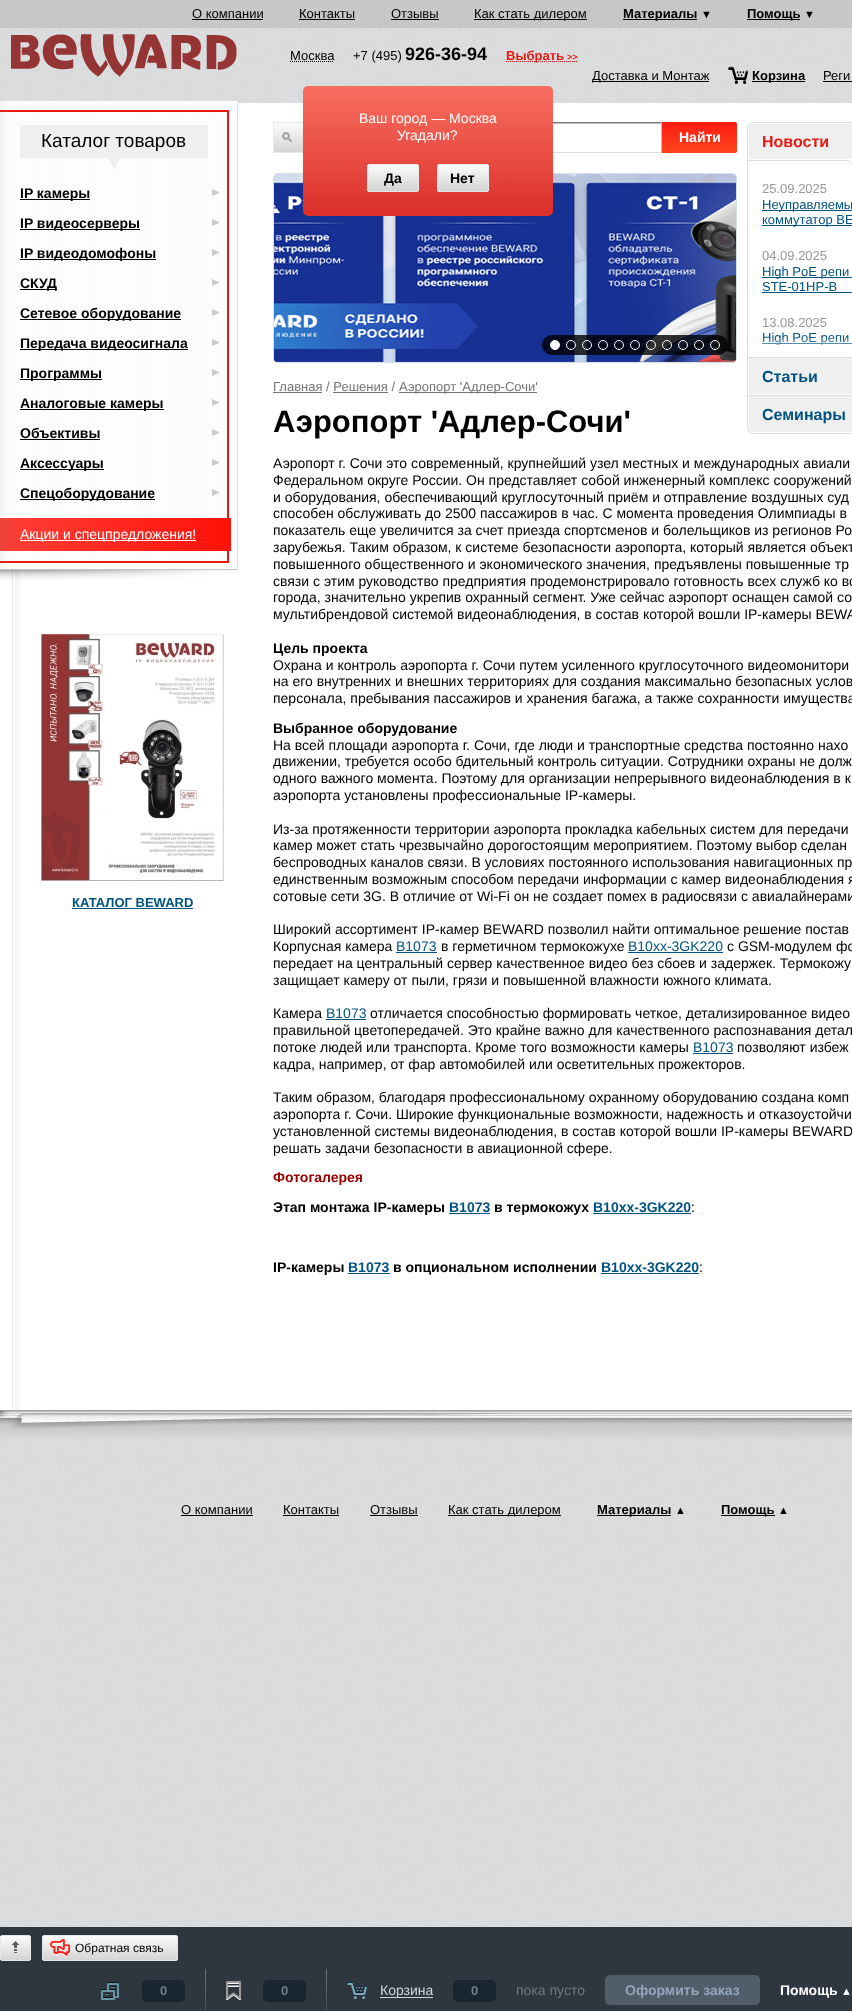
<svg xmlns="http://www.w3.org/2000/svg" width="852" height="2011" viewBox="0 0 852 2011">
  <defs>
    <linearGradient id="g1" gradientUnits="userSpaceOnUse" x1="346" y1="123" x2="346" y2="152"><stop offset="0" stop-color="#fbfbfb"/><stop offset="1" stop-color="#d5d5d5"/></linearGradient>
    <linearGradient id="g2" gradientUnits="userSpaceOnUse" x1="428" y1="86" x2="428" y2="216"><stop offset="0" stop-color="#f96f61"/><stop offset="1" stop-color="#db2f29"/></linearGradient>
    <clipPath id="clip1"><rect x="367" y="164" width="52" height="28" rx="2"/></clipPath>
    <linearGradient id="g3" gradientUnits="userSpaceOnUse" x1="393" y1="165" x2="393" y2="191"><stop offset="0" stop-color="#fbfbfb"/><stop offset="1" stop-color="#d4d4d4"/></linearGradient>
    <clipPath id="clip2"><rect x="437" y="164" width="52" height="28" rx="2"/></clipPath>
    <linearGradient id="g4" gradientUnits="userSpaceOnUse" x1="463" y1="165" x2="463" y2="191"><stop offset="0" stop-color="#fbfbfb"/><stop offset="1" stop-color="#d4d4d4"/></linearGradient>
    <linearGradient id="g5" gradientUnits="userSpaceOnUse" x1="-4" y1="535" x2="231" y2="535"><stop offset="0" stop-color="#e7433c"/><stop offset="0.1" stop-color="#ff3c33"/><stop offset="1" stop-color="#ff1109"/></linearGradient>
    <linearGradient id="g6" gradientUnits="userSpaceOnUse" x1="700" y1="122" x2="700" y2="153"><stop offset="0" stop-color="#fc1c14"/><stop offset="1" stop-color="#ff441b"/></linearGradient>
    <linearGradient id="g7" gradientUnits="userSpaceOnUse" x1="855" y1="337" x2="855" y2="357"><stop offset="0" stop-color="#ffffff" stop-opacity="0"/><stop offset="1" stop-color="#ffffff"/></linearGradient>
    <clipPath id="clip3"><rect x="748" y="123" width="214" height="310" rx="6"/></clipPath>
    <clipPath id="clip4"><rect x="0" y="1935" width="31" height="26" rx="2"/></clipPath>
    <linearGradient id="g8" gradientUnits="userSpaceOnUse" x1="15" y1="1936" x2="16" y2="1960"><stop offset="0" stop-color="#fbfbfb"/><stop offset="1" stop-color="#d4d4d4"/></linearGradient>
    <clipPath id="clip5"><rect x="42" y="1935" width="136" height="26" rx="2"/></clipPath>
    <linearGradient id="g9" gradientUnits="userSpaceOnUse" x1="110" y1="1936" x2="110" y2="1960"><stop offset="0" stop-color="#fbfbfb"/><stop offset="1" stop-color="#d4d4d4"/></linearGradient>
  </defs>
  <rect width="100%" height="100%" fill="#ffffff"/>
  <image x="0" y="0" width="852" height="1927" href="img1.png"/>
  <rect x="0" y="0" width="852" height="28" fill="#000000" fill-opacity="0.09"/>
  <text x="192" y="18" font-family="Liberation Sans" font-size="13" fill="#000000">О компании</text>
  <rect x="192" y="19" width="71" height="1" fill="#000000"/>
  <text x="299" y="18" font-family="Liberation Sans" font-size="13" fill="#000000">Контакты</text>
  <rect x="299" y="19" width="56" height="1" fill="#000000"/>
  <text x="391" y="18" font-family="Liberation Sans" font-size="13" fill="#000000">Отзывы</text>
  <rect x="391" y="19" width="48" height="1" fill="#000000"/>
  <rect x="474" y="19" width="113" height="1" fill="#000000"/>
  <text x="474" y="18" font-family="Liberation Sans" font-size="13" fill="#000000">Как стать дилером</text>
  <rect x="623" y="19" width="74" height="1" fill="#000000"/>
  <text x="623" y="18" font-family="Liberation Sans" font-size="13" font-weight="bold" fill="#000000">Материалы</text>
  <text x="701" y="18" font-family="Liberation Sans" font-size="11" font-weight="bold" fill="#000000">▼</text>
  <rect x="747" y="19" width="53" height="1" fill="#000000"/>
  <text x="747" y="18" font-family="Liberation Sans" font-size="13" font-weight="bold" fill="#000000">Помощь</text>
  <text x="804" y="18" font-family="Liberation Sans" font-size="11" font-weight="bold" fill="#000000">▼</text>
  <image x="11" y="34" width="226" height="43" href="img2.png"/>
  <path d="M290 61.5H334" fill="none" stroke="#000000" stroke-dasharray="1 1"/>
  <text x="290" y="60" font-family="Liberation Sans" font-size="13" fill="#000000">Москва</text>
  <text x="353" y="60" font-family="Liberation Sans" font-size="13" fill="#000000">+7 (495)</text>
  <text x="405" y="60" font-family="Liberation Sans" font-size="18" font-weight="bold" fill="#000000">926-36-94</text>
  <rect x="0" y="103" width="852" height="1307" fill="#ffffff"/>
  <rect x="274" y="123" width="29" height="29" fill="url(#g1)"/>
  <rect x="273.5" y="122.5" width="144" height="30" fill="none" stroke="#e8e8e8"/>
  <rect x="273.5" y="173.5" width="463" height="189" rx="3.5" fill="none" stroke="#d9e0e5"/>
  <image x="274" y="174" width="462" height="188" href="img10.png"/>
  <image x="274" y="174" width="462" height="188" href="img11.png"/>
  <image x="274" y="174" width="462" height="188" href="img12.png"/>
  <image x="274" y="174" width="462" height="188" href="img13.png"/>
  <image x="274" y="174" width="462" height="188" href="img14.png"/>
  <image x="274" y="174" width="462" height="188" href="img15.png"/>
  <image x="274" y="174" width="462" height="188" href="img16.png"/>
  <image x="274" y="174" width="462" height="188" href="img17.png"/>
  <image x="274" y="174" width="462" height="188" href="img18.png"/>
  <image x="274" y="174" width="462" height="188" href="img19.png"/>
  <image x="274" y="174" width="462" height="188" href="img20.png"/>
  <rect x="303" y="86" width="250" height="130" rx="5" fill="url(#g2)"/>
  <text x="359" y="123" font-family="Liberation Sans" font-size="14" fill="#ffffff">Ваш город — Москва</text>
  <text x="397" y="140" font-family="Liberation Sans" font-size="14" fill="#ffffff">Угадали?</text>
  <g clip-path="url(#clip1)">
    <rect x="367" y="165" width="52" height="26" fill="url(#g3)"/>
  </g>
  <rect x="367.5" y="164.5" width="51" height="27" rx="1.5" fill="none" stroke="#e7e7e7"/>
  <text x="384" y="183" font-family="Liberation Sans" font-size="14" font-weight="bold" fill="#000000">Да</text>
  <g clip-path="url(#clip2)">
    <rect x="437" y="165" width="52" height="26" fill="url(#g4)"/>
  </g>
  <rect x="437.5" y="164.5" width="51" height="27" rx="1.5" fill="none" stroke="#e7e7e7"/>
  <text x="450" y="183" font-family="Liberation Sans" font-size="14" font-weight="bold" fill="#000000">Нет</text>
  <path d="M506 61.5H577" fill="none" stroke="#e81912" stroke-dasharray="1 1"/>
  <text x="506" y="60" font-family="Liberation Sans" font-size="13" font-weight="bold" fill="#e81912">Выбрать</text>
  <text x="567" y="60" font-family="Liberation Sans" font-size="9" font-weight="bold" fill="#e81912">&gt;&gt;</text>
  <rect x="592" y="81" width="117" height="1" fill="#000000"/>
  <text x="592" y="80" font-family="Liberation Sans" font-size="13" fill="#000000">Доставка и Монтаж</text>
  <image x="728" y="66" width="20" height="18" href="img3.png"/>
  <rect x="752" y="81" width="53" height="1" fill="#000000"/>
  <text x="752" y="80" font-family="Liberation Sans" font-size="13" font-weight="bold" fill="#000000">Корзина</text>
  <rect x="823" y="81" width="29" height="1" fill="#000000"/>
  <text x="823" y="80" font-family="Liberation Sans" font-size="13" fill="#000000">Реги</text>
  <image x="12" y="570" width="8" height="840" href="img4.png"/>
  <image x="0" y="116" width="229" height="445" href="img5.png"/>
  <rect x="237" y="116" width="1" height="445" fill="#dfdfdf"/>
  <image x="0" y="101" width="238" height="15" href="img6.png"/>
  <rect x="20" y="125" width="188" height="33" fill="#efefef"/>
  <text x="41" y="147" font-family="Liberation Sans" font-size="19" fill="#000000">Каталог товаров</text>
  <path d="M108 158H120L114 169Z" fill="#efefef"/>
  <rect x="20" y="199" width="70" height="1" fill="#000000"/>
  <text x="20" y="198" font-family="Liberation Sans" font-size="14" font-weight="bold" fill="#000000">IP камеры</text>
  <path d="M212 196V189L219 192V193Z" fill="#cbcbcb"/>
  <rect x="20" y="229" width="120" height="1" fill="#000000"/>
  <text x="20" y="228" font-family="Liberation Sans" font-size="14" font-weight="bold" fill="#000000">IP видеосерверы</text>
  <path d="M212 226V219L219 222V223Z" fill="#cbcbcb"/>
  <rect x="20" y="259" width="136" height="1" fill="#000000"/>
  <text x="20" y="258" font-family="Liberation Sans" font-size="14" font-weight="bold" fill="#000000">IP видеодомофоны</text>
  <path d="M212 256V249L219 252V253Z" fill="#cbcbcb"/>
  <rect x="20" y="289" width="37" height="1" fill="#000000"/>
  <text x="20" y="288" font-family="Liberation Sans" font-size="14" font-weight="bold" fill="#000000">СКУД</text>
  <path d="M212 286V279L219 282V283Z" fill="#cbcbcb"/>
  <rect x="20" y="319" width="161" height="1" fill="#000000"/>
  <text x="20" y="318" font-family="Liberation Sans" font-size="14" font-weight="bold" fill="#000000">Сетевое оборудование</text>
  <path d="M212 316V309L219 312V313Z" fill="#cbcbcb"/>
  <rect x="20" y="349" width="168" height="1" fill="#000000"/>
  <text x="20" y="348" font-family="Liberation Sans" font-size="14" font-weight="bold" fill="#000000">Передача видеосигнала</text>
  <path d="M212 346V339L219 342V343Z" fill="#cbcbcb"/>
  <rect x="20" y="379" width="82" height="1" fill="#000000"/>
  <text x="20" y="378" font-family="Liberation Sans" font-size="14" font-weight="bold" fill="#000000">Программы</text>
  <path d="M212 376V369L219 372V373Z" fill="#cbcbcb"/>
  <rect x="20" y="409" width="144" height="1" fill="#000000"/>
  <text x="20" y="408" font-family="Liberation Sans" font-size="14" font-weight="bold" fill="#000000">Аналоговые камеры</text>
  <path d="M212 406V399L219 402V403Z" fill="#cbcbcb"/>
  <text x="20" y="438" font-family="Liberation Sans" font-size="14" font-weight="bold" fill="#000000">Объективы</text>
  <rect x="20" y="439" width="80" height="1" fill="#000000"/>
  <path d="M212 436V429L219 432V433Z" fill="#cbcbcb"/>
  <rect x="20" y="469" width="84" height="1" fill="#000000"/>
  <text x="20" y="468" font-family="Liberation Sans" font-size="14" font-weight="bold" fill="#000000">Аксессуары</text>
  <path d="M212 466V459L219 462V463Z" fill="#cbcbcb"/>
  <rect x="20" y="499" width="135" height="1" fill="#000000"/>
  <text x="20" y="498" font-family="Liberation Sans" font-size="14" font-weight="bold" fill="#000000">Спецоборудование</text>
  <path d="M212 496V489L219 492V493Z" fill="#cbcbcb"/>
  <rect x="0" y="518" width="231" height="33" fill="url(#g5)"/>
  <rect x="20" y="540" width="176" height="1" fill="#ffffff"/>
  <text x="20" y="539" font-family="Liberation Sans" font-size="14" fill="#ffffff">Акции и спецпредложения!</text>
  <image x="0" y="561" width="238" height="19" href="img7.png"/>
  <image x="41" y="634" width="183" height="247" href="img8.png"/>
  <text x="72" y="907" font-family="Liberation Sans" font-size="13" font-weight="bold" fill="#005380">КАТАЛОГ BEWARD</text>
  <rect x="72" y="908" width="121" height="1" fill="#005380"/>
  <image x="282" y="132" width="10" height="10" href="img9.png"/>
  <rect x="553" y="123" width="108" height="1" fill="#bfbfbf"/>
  <rect x="553" y="122" width="109" height="1" fill="#797979"/>
  <rect x="661" y="122" width="1" height="31" fill="#bfbfbf"/>
  <rect x="553" y="152" width="109" height="1" fill="#dcdcdc"/>
  <path d="M662 122H735C736 122 737 123 737 124V151C737 152 736 153 735 153H662Z" fill="url(#g6)"/>
  <text x="679" y="142" font-family="Liberation Sans" font-size="14" font-weight="bold" fill="#ffffff">Найти</text>
  <rect x="542" y="335" width="186" height="20" rx="10" fill="#000000" fill-opacity="0.8"/>
  <circle cx="555" cy="345" r="4.5" fill="#ffffff" stroke="#ffffff"/>
  <circle cx="571" cy="345" r="4.5" fill="none" stroke="#ffffff"/>
  <circle cx="587" cy="345" r="4.5" fill="none" stroke="#ffffff"/>
  <circle cx="603" cy="345" r="4.5" fill="none" stroke="#ffffff"/>
  <circle cx="619" cy="345" r="4.5" fill="none" stroke="#ffffff"/>
  <circle cx="635" cy="345" r="4.5" fill="none" stroke="#ffffff"/>
  <circle cx="651" cy="345" r="4.5" fill="none" stroke="#ffffff"/>
  <circle cx="667" cy="345" r="4.5" fill="none" stroke="#ffffff"/>
  <circle cx="683" cy="345" r="4.5" fill="none" stroke="#ffffff"/>
  <circle cx="699" cy="345" r="4.5" fill="none" stroke="#ffffff"/>
  <circle cx="715" cy="345" r="4.5" fill="none" stroke="#ffffff"/>
  <text x="273" y="391" font-family="Liberation Sans" font-size="13" fill="#737373">Главная / Решения /</text>
  <rect x="273" y="392" width="49" height="1" fill="#737373"/>
  <rect x="399" y="392" width="138" height="1" fill="#737373"/>
  <text x="399" y="391" font-family="Liberation Sans" font-size="13" fill="#737373">Аэропорт 'Адлер-Сочи'</text>
  <rect x="333" y="392" width="55" height="1" fill="#737373"/>
  <text x="273" y="432" font-family="Liberation Sans" font-size="31" font-weight="bold" fill="#000000">Аэропорт 'Адлер-Сочи'</text>
  <rect x="747" y="122" width="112" height="312" rx="7" fill="#efefef"/>
  <rect x="748.5" y="123.5" width="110" height="309" rx="5.5" fill="none" stroke="#ffffff"/>
  <rect x="747.5" y="122.5" width="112" height="311" rx="6.5" fill="none" stroke="#dadfe5"/>
  <rect x="748" y="159" width="104" height="1" fill="#ffffff"/>
  <text x="762" y="147" font-family="Liberation Sans" font-size="16" font-weight="bold" fill="#e81912">Новости</text>
  <rect x="749" y="161" width="103" height="196" fill="#ffffff"/>
  <rect x="748" y="160" width="104" height="1" fill="#dadfe5"/>
  <image x="849" y="159" width="3" height="5" href="img21.png"/>
  <text x="762" y="193" font-family="Liberation Sans" font-size="13" fill="#989898">25.09.2025</text>
  <rect x="762" y="210" width="90" height="1" fill="#005380"/>
  <text x="762" y="209" font-family="Liberation Sans" font-size="13" fill="#005380">Неуправляемы</text>
  <rect x="762" y="225" width="90" height="1" fill="#005380"/>
  <text x="762" y="224" font-family="Liberation Sans" font-size="13" fill="#005380">коммутатор BE</text>
  <text x="762" y="260" font-family="Liberation Sans" font-size="13" fill="#989898">04.09.2025</text>
  <rect x="762" y="277" width="90" height="1" fill="#005380"/>
  <text x="762" y="276" font-family="Liberation Sans" font-size="13" fill="#005380">High PoE репи</text>
  <text x="762" y="291" font-family="Liberation Sans" font-size="13" fill="#005380">STE-01HP-B</text>
  <rect x="762" y="292" width="90" height="1" fill="#005380"/>
  <text x="762" y="327" font-family="Liberation Sans" font-size="13" fill="#989898">13.08.2025</text>
  <rect x="762" y="343" width="90" height="1" fill="#005380"/>
  <text x="762" y="342" font-family="Liberation Sans" font-size="13" fill="#005380">High PoE репи</text>
  <rect x="762" y="337" width="90" height="8" fill="url(#g7)"/>
  <rect x="748" y="394" width="104" height="1" fill="#ffffff"/>
  <rect x="748" y="357" width="104" height="1" fill="#dadfe5"/>
  <text x="762" y="382" font-family="Liberation Sans" font-size="16" font-weight="bold" fill="#005380">Статьи</text>
  <g clip-path="url(#clip3)">
    <rect x="748" y="432" width="104" height="1" fill="#ffffff"/>
  </g>
  <rect x="748" y="395" width="104" height="1" fill="#dadfe5"/>
  <text x="762" y="420" font-family="Liberation Sans" font-size="16" font-weight="bold" fill="#005380">Семинары</text>
  <text x="273" y="468" font-family="Liberation Sans" font-size="14" fill="#000000">Аэропорт г. Сочи это современный, крупнейший узел местных и международных авиали</text>
  <text x="273" y="485" font-family="Liberation Sans" font-size="14" fill="#000000">Федеральном округе России. Он представляет собой инженерный комплекс сооружений</text>
  <text x="273" y="502" font-family="Liberation Sans" font-size="14" fill="#000000">и оборудования, обеспечивающий круглосуточный приём и отправление воздушных суд</text>
  <text x="273" y="518" font-family="Liberation Sans" font-size="14" fill="#000000">способен обслуживать до 2500 пассажиров в час. С момента проведения Олимпиады в</text>
  <text x="273" y="535" font-family="Liberation Sans" font-size="14" fill="#000000">показатель еще увеличится за счет приезда спортсменов и болельщиков из регионов Ро</text>
  <text x="273" y="552" font-family="Liberation Sans" font-size="14" fill="#000000">зарубежья. Таким образом, к системе безопасности аэропорта, который является объект</text>
  <text x="273" y="569" font-family="Liberation Sans" font-size="14" fill="#000000">повышенного общественного и экономического значения, предъявлены повышенные тр</text>
  <text x="273" y="586" font-family="Liberation Sans" font-size="14" fill="#000000">связи с этим руководство предприятия продемонстрировало готовность всех служб ко вс</text>
  <text x="273" y="602" font-family="Liberation Sans" font-size="14" fill="#000000">города, значительно укрепив охранный сегмент. Уже сейчас аэропорт оснащен самой со</text>
  <text x="273" y="619" font-family="Liberation Sans" font-size="14" fill="#000000">мультибрендовой системой видеонаблюдения, в состав которой вошли IP-камеры BEWA</text>
  <text x="273" y="653" font-family="Liberation Sans" font-size="14" font-weight="bold" fill="#000000">Цель проекта</text>
  <text x="273" y="670" font-family="Liberation Sans" font-size="14" fill="#000000">Охрана и контроль аэропорта г. Сочи путем усиленного круглосуточного видеомонитори</text>
  <text x="273" y="686" font-family="Liberation Sans" font-size="14" fill="#000000">на его внутренних и внешних территориях для создания максимально безопасных услов</text>
  <text x="273" y="703" font-family="Liberation Sans" font-size="14" fill="#000000">персонала, пребывания пассажиров и хранения багажа, а также сохранности имущества</text>
  <text x="273" y="733" font-family="Liberation Sans" font-size="14" font-weight="bold" fill="#000000">Выбранное оборудование</text>
  <text x="273" y="750" font-family="Liberation Sans" font-size="14" fill="#000000">На всей площади аэропорта г. Сочи, где люди и транспортные средства постоянно нахо</text>
  <text x="273" y="766" font-family="Liberation Sans" font-size="14" fill="#000000">движении, требуется особо бдительный контроль ситуации. Сотрудники охраны не долж</text>
  <text x="273" y="783" font-family="Liberation Sans" font-size="14" fill="#000000">одного важного момента. Поэтому для организации непрерывного видеонаблюдения в к</text>
  <text x="273" y="800" font-family="Liberation Sans" font-size="14" fill="#000000">аэропорта установлены профессиональные IP-камеры.</text>
  <text x="273" y="834" font-family="Liberation Sans" font-size="14" fill="#000000">Из-за протяженности территории аэропорта прокладка кабельных систем для передачи</text>
  <text x="273" y="850" font-family="Liberation Sans" font-size="14" fill="#000000">камер может стать чрезвычайно дорогостоящим мероприятием. Поэтому выбор сделан</text>
  <text x="273" y="867" font-family="Liberation Sans" font-size="14" fill="#000000">беспроводных каналов связи. В условиях постоянного использования навигационных пр</text>
  <text x="273" y="884" font-family="Liberation Sans" font-size="14" fill="#000000">единственным возможным способом передачи информации с камер видеонаблюдения я</text>
  <text x="273" y="901" font-family="Liberation Sans" font-size="14" fill="#000000">сотовые сети 3G. В отличие от Wi-Fi он не создает помех в радиосвязи с авиалайнерами</text>
  <text x="273" y="934" font-family="Liberation Sans" font-size="14" fill="#000000">Широкий ассортимент IP-камер BEWARD позволил найти оптимальное решение постав</text>
  <text x="273" y="951" font-family="Liberation Sans" font-size="14" fill="#000000">Корпусная камера</text>
  <text x="396" y="951" font-family="Liberation Sans" font-size="14" fill="#005380">B1073</text>
  <rect x="396" y="952" width="41" height="1" fill="#005380"/>
  <text x="441" y="951" font-family="Liberation Sans" font-size="14" fill="#000000">в герметичном термокожухе</text>
  <text x="628" y="951" font-family="Liberation Sans" font-size="14" fill="#005380">B10xx-3GK220</text>
  <rect x="628" y="952" width="95" height="1" fill="#005380"/>
  <text x="727" y="951" font-family="Liberation Sans" font-size="14" fill="#000000">с GSM-модулем фо</text>
  <text x="273" y="968" font-family="Liberation Sans" font-size="14" fill="#000000">передает на центральный сервер качественное видео без сбоев и задержек. Термокожу</text>
  <text x="273" y="985" font-family="Liberation Sans" font-size="14" fill="#000000">защищает камеру от пыли, грязи и повышенной влажности южного климата.</text>
  <text x="273" y="1018" font-family="Liberation Sans" font-size="14" fill="#000000">Камера</text>
  <text x="326" y="1018" font-family="Liberation Sans" font-size="14" fill="#005380">B1073</text>
  <rect x="326" y="1019" width="40" height="1" fill="#005380"/>
  <text x="370" y="1018" font-family="Liberation Sans" font-size="14" fill="#000000">отличается способностью формировать четкое, детализированное видео</text>
  <text x="273" y="1035" font-family="Liberation Sans" font-size="14" fill="#000000">правильной цветопередачей. Это крайне важно для качественного распознавания детал</text>
  <text x="273" y="1052" font-family="Liberation Sans" font-size="14" fill="#000000">потоке людей или транспорта. Кроме того возможности камеры</text>
  <text x="693" y="1052" font-family="Liberation Sans" font-size="14" fill="#005380">B1073</text>
  <rect x="693" y="1053" width="40" height="1" fill="#005380"/>
  <text x="737" y="1052" font-family="Liberation Sans" font-size="14" fill="#000000">позволяют избеж</text>
  <text x="273" y="1069" font-family="Liberation Sans" font-size="14" fill="#000000">кадра, например, от фар автомобилей или осветительных прожекторов.</text>
  <text x="273" y="1102" font-family="Liberation Sans" font-size="14" fill="#000000">Таким образом, благодаря профессиональному охранному оборудованию создана комп</text>
  <text x="273" y="1119" font-family="Liberation Sans" font-size="14" fill="#000000">аэропорта г. Сочи. Широкие функциональные возможности, надежность и отказоустойчи</text>
  <text x="273" y="1136" font-family="Liberation Sans" font-size="14" fill="#000000">установленной системы видеонаблюдения, в состав которой вошли IP-камеры BEWARD</text>
  <text x="273" y="1153" font-family="Liberation Sans" font-size="14" fill="#000000">решать задачи безопасности в авиационной сфере.</text>
  <text x="273" y="1182" font-family="Liberation Sans" font-size="14" font-weight="bold" fill="#990000">Фотогалерея</text>
  <text x="273" y="1212" font-family="Liberation Sans" font-size="14" font-weight="bold" fill="#000000">Этап монтажа IP-камеры</text>
  <text x="449" y="1212" font-family="Liberation Sans" font-size="14" font-weight="bold" fill="#005380">B1073</text>
  <rect x="449" y="1213" width="41" height="1" fill="#005380"/>
  <text x="494" y="1212" font-family="Liberation Sans" font-size="14" font-weight="bold" fill="#000000">в термокожух</text>
  <rect x="593" y="1213" width="98" height="1" fill="#005380"/>
  <text x="593" y="1212" font-family="Liberation Sans" font-size="14" font-weight="bold" fill="#005380">B10xx-3GK220</text>
  <text x="691" y="1212" font-family="Liberation Sans" font-size="14" fill="#000000">:</text>
  <text x="273" y="1272" font-family="Liberation Sans" font-size="14" font-weight="bold" fill="#000000">IP-камеры</text>
  <text x="348" y="1272" font-family="Liberation Sans" font-size="14" font-weight="bold" fill="#005380">B1073</text>
  <rect x="348" y="1273" width="42" height="1" fill="#005380"/>
  <text x="393" y="1272" font-family="Liberation Sans" font-size="14" font-weight="bold" fill="#000000">в опциональном исполнении</text>
  <rect x="601" y="1273" width="98" height="1" fill="#005380"/>
  <text x="601" y="1272" font-family="Liberation Sans" font-size="14" font-weight="bold" fill="#005380">B10xx-3GK220</text>
  <text x="699" y="1272" font-family="Liberation Sans" font-size="14" fill="#000000">:</text>
  <image x="0" y="1410" width="852" height="29" href="img22.png"/>
  <text x="181" y="1514" font-family="Liberation Sans" font-size="13" fill="#000000">О компании</text>
  <rect x="181" y="1515" width="72" height="1" fill="#000000"/>
  <text x="283" y="1514" font-family="Liberation Sans" font-size="13" fill="#000000">Контакты</text>
  <rect x="283" y="1515" width="56" height="1" fill="#000000"/>
  <text x="370" y="1514" font-family="Liberation Sans" font-size="13" fill="#000000">Отзывы</text>
  <rect x="370" y="1515" width="48" height="1" fill="#000000"/>
  <rect x="448" y="1515" width="113" height="1" fill="#000000"/>
  <text x="448" y="1514" font-family="Liberation Sans" font-size="13" fill="#000000">Как стать дилером</text>
  <rect x="597" y="1515" width="74" height="1" fill="#000000"/>
  <text x="597" y="1514" font-family="Liberation Sans" font-size="13" font-weight="bold" fill="#000000">Материалы</text>
  <text x="675" y="1514" font-family="Liberation Sans" font-size="11" font-weight="bold" fill="#000000">▲</text>
  <rect x="721" y="1515" width="54" height="1" fill="#000000"/>
  <text x="721" y="1514" font-family="Liberation Sans" font-size="13" font-weight="bold" fill="#000000">Помощь</text>
  <text x="778" y="1514" font-family="Liberation Sans" font-size="11" font-weight="bold" fill="#000000">▲</text>
  <rect x="0" y="1927" width="852" height="84" fill="#2e3740"/>
  <g clip-path="url(#clip4)">
    <rect x="0" y="1936" width="31" height="24" fill="url(#g8)"/>
  </g>
  <rect x="0.5" y="1935.5" width="30" height="25" rx="1.5" fill="none" stroke="#e7e7e7"/>
  <image x="11" y="1941" width="9" height="13" href="img23.png"/>
  <g clip-path="url(#clip5)">
    <rect x="42" y="1936" width="136" height="24" fill="url(#g9)"/>
  </g>
  <rect x="42.5" y="1935.5" width="135" height="25" rx="1.5" fill="none" stroke="#e7e7e7"/>
  <image x="50" y="1939" width="20" height="18" href="img24.png"/>
  <text x="75" y="1952" font-family="Liberation Sans" font-size="12" fill="#000000">Обратная связь</text>
  <image x="101" y="1982" width="18" height="18" href="img25.png"/>
  <rect x="142" y="1980" width="43" height="22" rx="5" fill="#192531"/>
  <text x="160" y="1995" font-family="Liberation Sans" font-size="13" font-weight="bold" fill="#717e8c">0</text>
  <image x="205" y="1969" width="1" height="42" href="img26.png"/>
  <image x="226" y="1981" width="15" height="20" href="img27.png"/>
  <rect x="263" y="1980" width="43" height="22" rx="5" fill="#192531"/>
  <text x="281" y="1995" font-family="Liberation Sans" font-size="13" font-weight="bold" fill="#717e8c">0</text>
  <image x="326" y="1969" width="1" height="42" href="img26.png"/>
  <image x="347" y="1982" width="20" height="17" href="img28.png"/>
  <rect x="380" y="1997" width="53" height="1" fill="#ced4d9"/>
  <text x="380" y="1995" font-family="Liberation Sans" font-size="14" fill="#ced4d9">Корзина</text>
  <rect x="453" y="1980" width="43" height="22" rx="5" fill="#192531"/>
  <text x="471" y="1995" font-family="Liberation Sans" font-size="13" font-weight="bold" fill="#717e8c">0</text>
  <text x="516" y="1995" font-family="Liberation Sans" font-size="14" fill="#6b7883">пока пусто</text>
  <rect x="605" y="1975" width="155" height="30" rx="5" fill="#515e6a"/>
  <text x="625" y="1995" font-family="Liberation Sans" font-size="14" font-weight="bold" fill="#92a7bb">Оформить заказ</text>
  <text x="780" y="1995" font-family="Liberation Sans" font-size="14" font-weight="bold" fill="#ffffff">Помощь</text>
  <text x="841" y="1995" font-family="Liberation Sans" font-size="11" font-weight="bold" fill="#ffffff">▲</text>
</svg>
